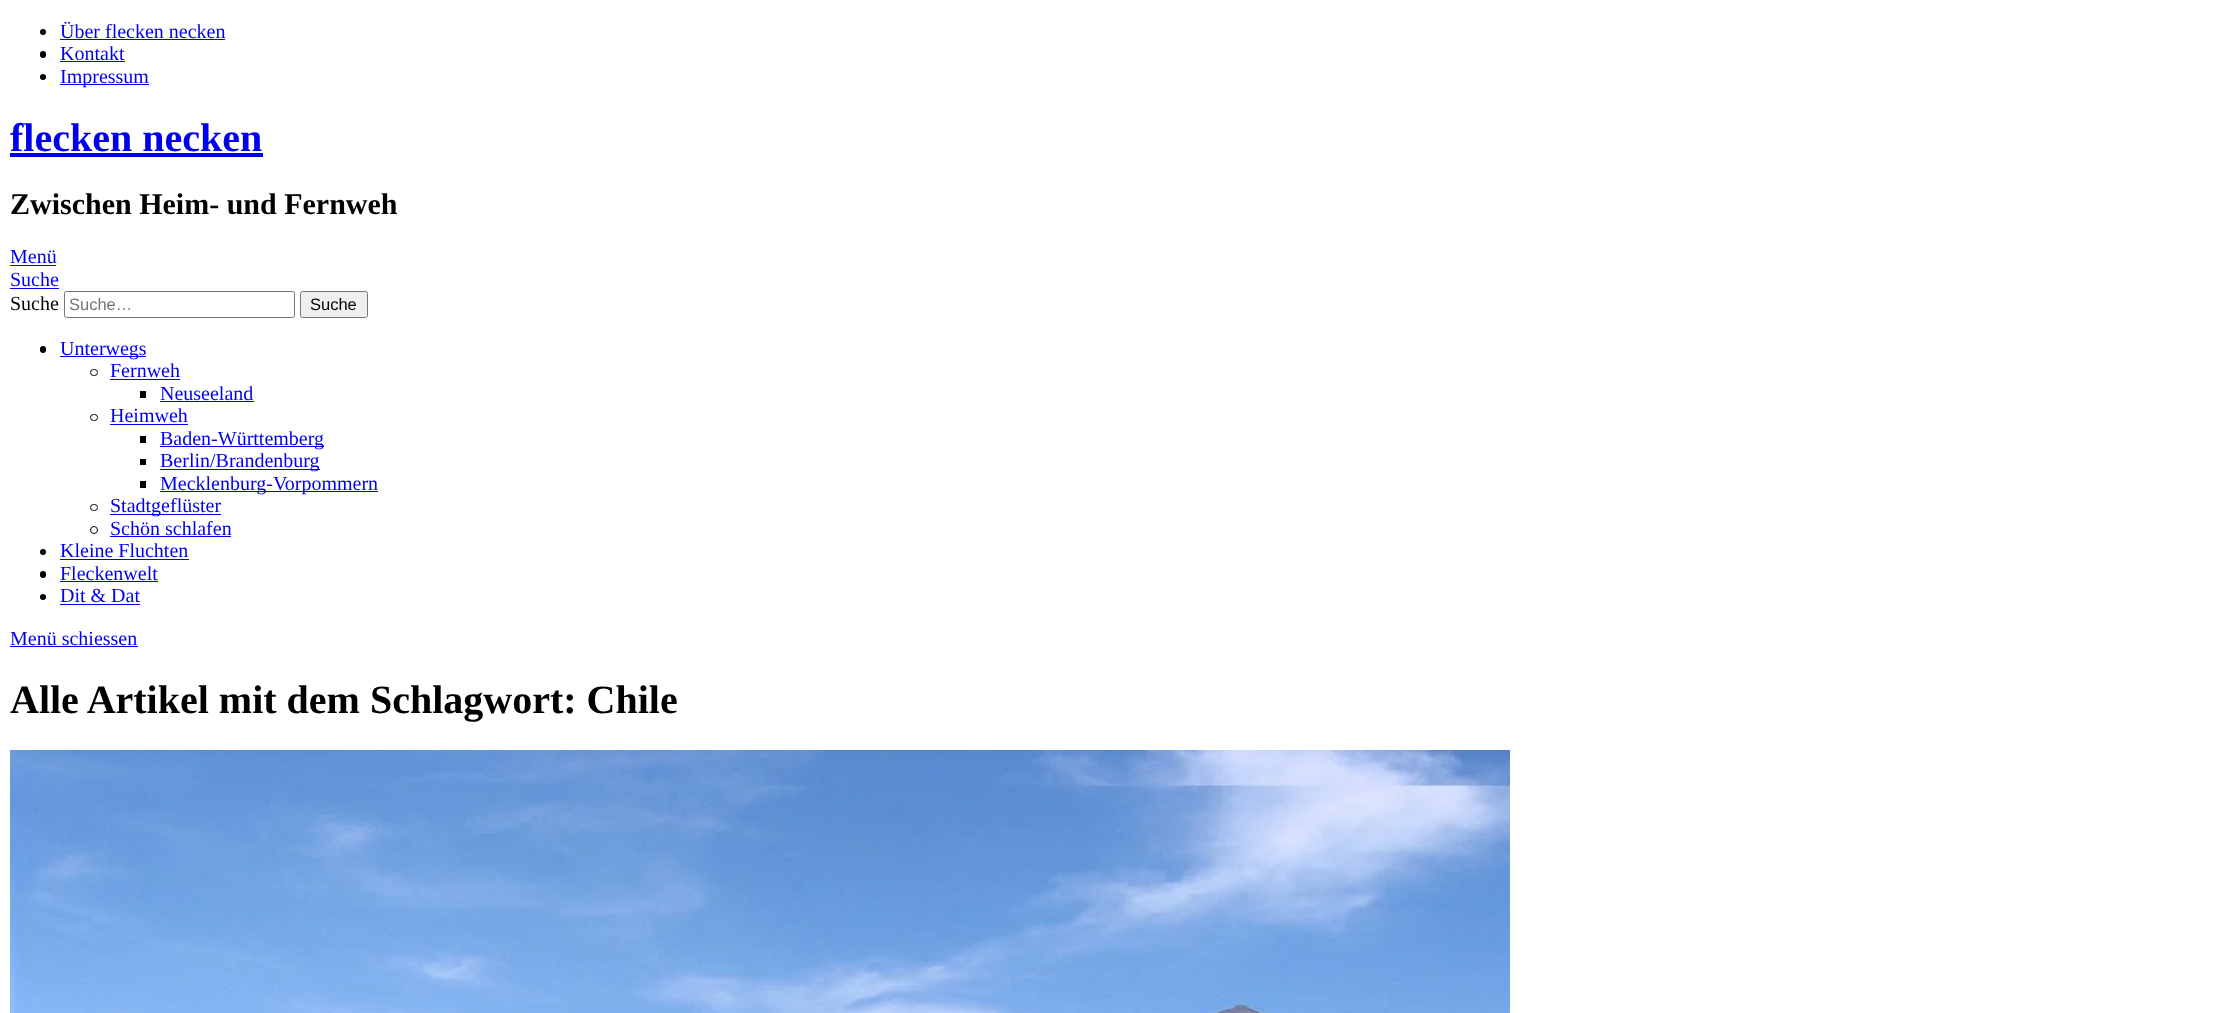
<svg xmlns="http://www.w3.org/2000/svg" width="2222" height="1013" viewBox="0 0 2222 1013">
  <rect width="100%" height="100%" fill="#ffffff"/>
  <circle cx="43" cy="32" r="3" fill="#000000"/>
  <text x="60" y="38" font-family="Liberation Serif" font-size="20" fill="#0000ee">Über flecken necken</text>
  <rect x="60" y="39" width="165" height="1" fill="#0000ee"/>
  <rect x="40" y="51" width="6" height="7" rx="3" fill="#000000"/>
  <text x="60" y="60" font-family="Liberation Serif" font-size="20" fill="#0000ee">Kontakt</text>
  <rect x="60" y="61" width="65" height="1" fill="#0000ee"/>
  <circle cx="43" cy="77" r="3" fill="#000000"/>
  <rect x="60" y="84" width="89" height="1" fill="#0000ee"/>
  <text x="60" y="83" font-family="Liberation Serif" font-size="20" fill="#0000ee">Impressum</text>
  <text x="10" y="151" font-family="Liberation Serif" font-size="40" font-weight="bold" fill="#0000ee">flecken necken</text>
  <rect x="10" y="153" width="253" height="4" fill="#0000ee"/>
  <text x="10" y="214" font-family="Liberation Serif" font-size="30" font-weight="bold" fill="#000000">Zwischen Heim- und Fernweh</text>
  <text x="10" y="263" font-family="Liberation Serif" font-size="20" fill="#0000ee">Menü</text>
  <rect x="10" y="265" width="46" height="1" fill="#0000ee"/>
  <text x="10" y="286" font-family="Liberation Serif" font-size="20" fill="#0000ee">Suche</text>
  <rect x="10" y="288" width="49" height="1" fill="#0000ee"/>
  <text x="10" y="310" font-family="Liberation Serif" font-size="20" fill="#000000">Suche</text>
  <rect x="64.5" y="291.5" width="230" height="26" rx="2" fill="none" stroke="#767676"/>
  <text x="69" y="310" font-family="Liberation Sans" font-size="16.5" fill="#757575">Suche…</text>
  <rect x="300.5" y="291.5" width="67" height="26" rx="2" fill="#efefef" stroke="#767676"/>
  <text x="310" y="310" font-family="Liberation Sans" font-size="16.5" fill="#000000">Suche</text>
  <rect x="40" y="346" width="6" height="7" rx="3" fill="#000000"/>
  <rect x="60" y="356" width="86" height="1" fill="#0000ee"/>
  <text x="60" y="355" font-family="Liberation Serif" font-size="20" fill="#0000ee">Unterwegs</text>
  <rect x="90.5" y="369.5" width="7" height="6" rx="3" fill="none" stroke="#000000"/>
  <text x="110" y="377" font-family="Liberation Serif" font-size="20" fill="#0000ee">Fernweh</text>
  <rect x="110" y="379" width="70" height="1" fill="#0000ee"/>
  <rect x="140" y="391" width="6" height="7" fill="#000000"/>
  <text x="160" y="400" font-family="Liberation Serif" font-size="20" fill="#0000ee">Neuseeland</text>
  <rect x="160" y="401" width="94" height="1" fill="#0000ee"/>
  <rect x="90.5" y="414.5" width="7" height="6" rx="3" fill="none" stroke="#000000"/>
  <text x="110" y="422" font-family="Liberation Serif" font-size="20" fill="#0000ee">Heimweh</text>
  <rect x="110" y="424" width="78" height="1" fill="#0000ee"/>
  <rect x="140" y="436" width="6" height="7" fill="#000000"/>
  <rect x="160" y="446" width="164" height="1" fill="#0000ee"/>
  <text x="160" y="445" font-family="Liberation Serif" font-size="20" fill="#0000ee">Baden-Württemberg</text>
  <rect x="140" y="459" width="6" height="6" fill="#000000"/>
  <rect x="160" y="469" width="160" height="1" fill="#0000ee"/>
  <text x="160" y="467" font-family="Liberation Serif" font-size="20" fill="#0000ee">Berlin/Brandenburg</text>
  <rect x="140" y="481" width="6" height="7" fill="#000000"/>
  <rect x="160" y="491" width="218" height="1" fill="#0000ee"/>
  <text x="160" y="490" font-family="Liberation Serif" font-size="20" fill="#0000ee">Mecklenburg-Vorpommern</text>
  <rect x="90.5" y="504.5" width="7" height="6" rx="3" fill="none" stroke="#000000"/>
  <rect x="110" y="514" width="111" height="1" fill="#0000ee"/>
  <text x="110" y="512" font-family="Liberation Serif" font-size="20" fill="#0000ee">Stadtgeflüster</text>
  <circle cx="94" cy="530" r="3.5" fill="none" stroke="#000000"/>
  <text x="110" y="535" font-family="Liberation Serif" font-size="20" fill="#0000ee">Schön schlafen</text>
  <rect x="110" y="536" width="121" height="1" fill="#0000ee"/>
  <circle cx="43" cy="552" r="3" fill="#000000"/>
  <text x="60" y="557" font-family="Liberation Serif" font-size="20" fill="#0000ee">Kleine Fluchten</text>
  <rect x="60" y="559" width="129" height="1" fill="#0000ee"/>
  <rect x="40" y="571" width="6" height="7" rx="3" fill="#000000"/>
  <text x="60" y="580" font-family="Liberation Serif" font-size="20" fill="#0000ee">Fleckenwelt</text>
  <rect x="60" y="581" width="98" height="1" fill="#0000ee"/>
  <circle cx="43" cy="597" r="3" fill="#000000"/>
  <text x="60" y="602" font-family="Liberation Serif" font-size="20" fill="#0000ee">Dit &amp; Dat</text>
  <rect x="60" y="604" width="80" height="1" fill="#0000ee"/>
  <text x="10" y="645" font-family="Liberation Serif" font-size="20" fill="#0000ee">Menü schiessen</text>
  <rect x="10" y="646" width="128" height="1" fill="#0000ee"/>
  <text x="10" y="713" font-family="Liberation Serif" font-size="40" font-weight="bold" fill="#000000">Alle Artikel mit dem Schlagwort: Chile</text>
  <image x="10" y="750" width="1500" height="263" href="img1.png"/>
</svg>
